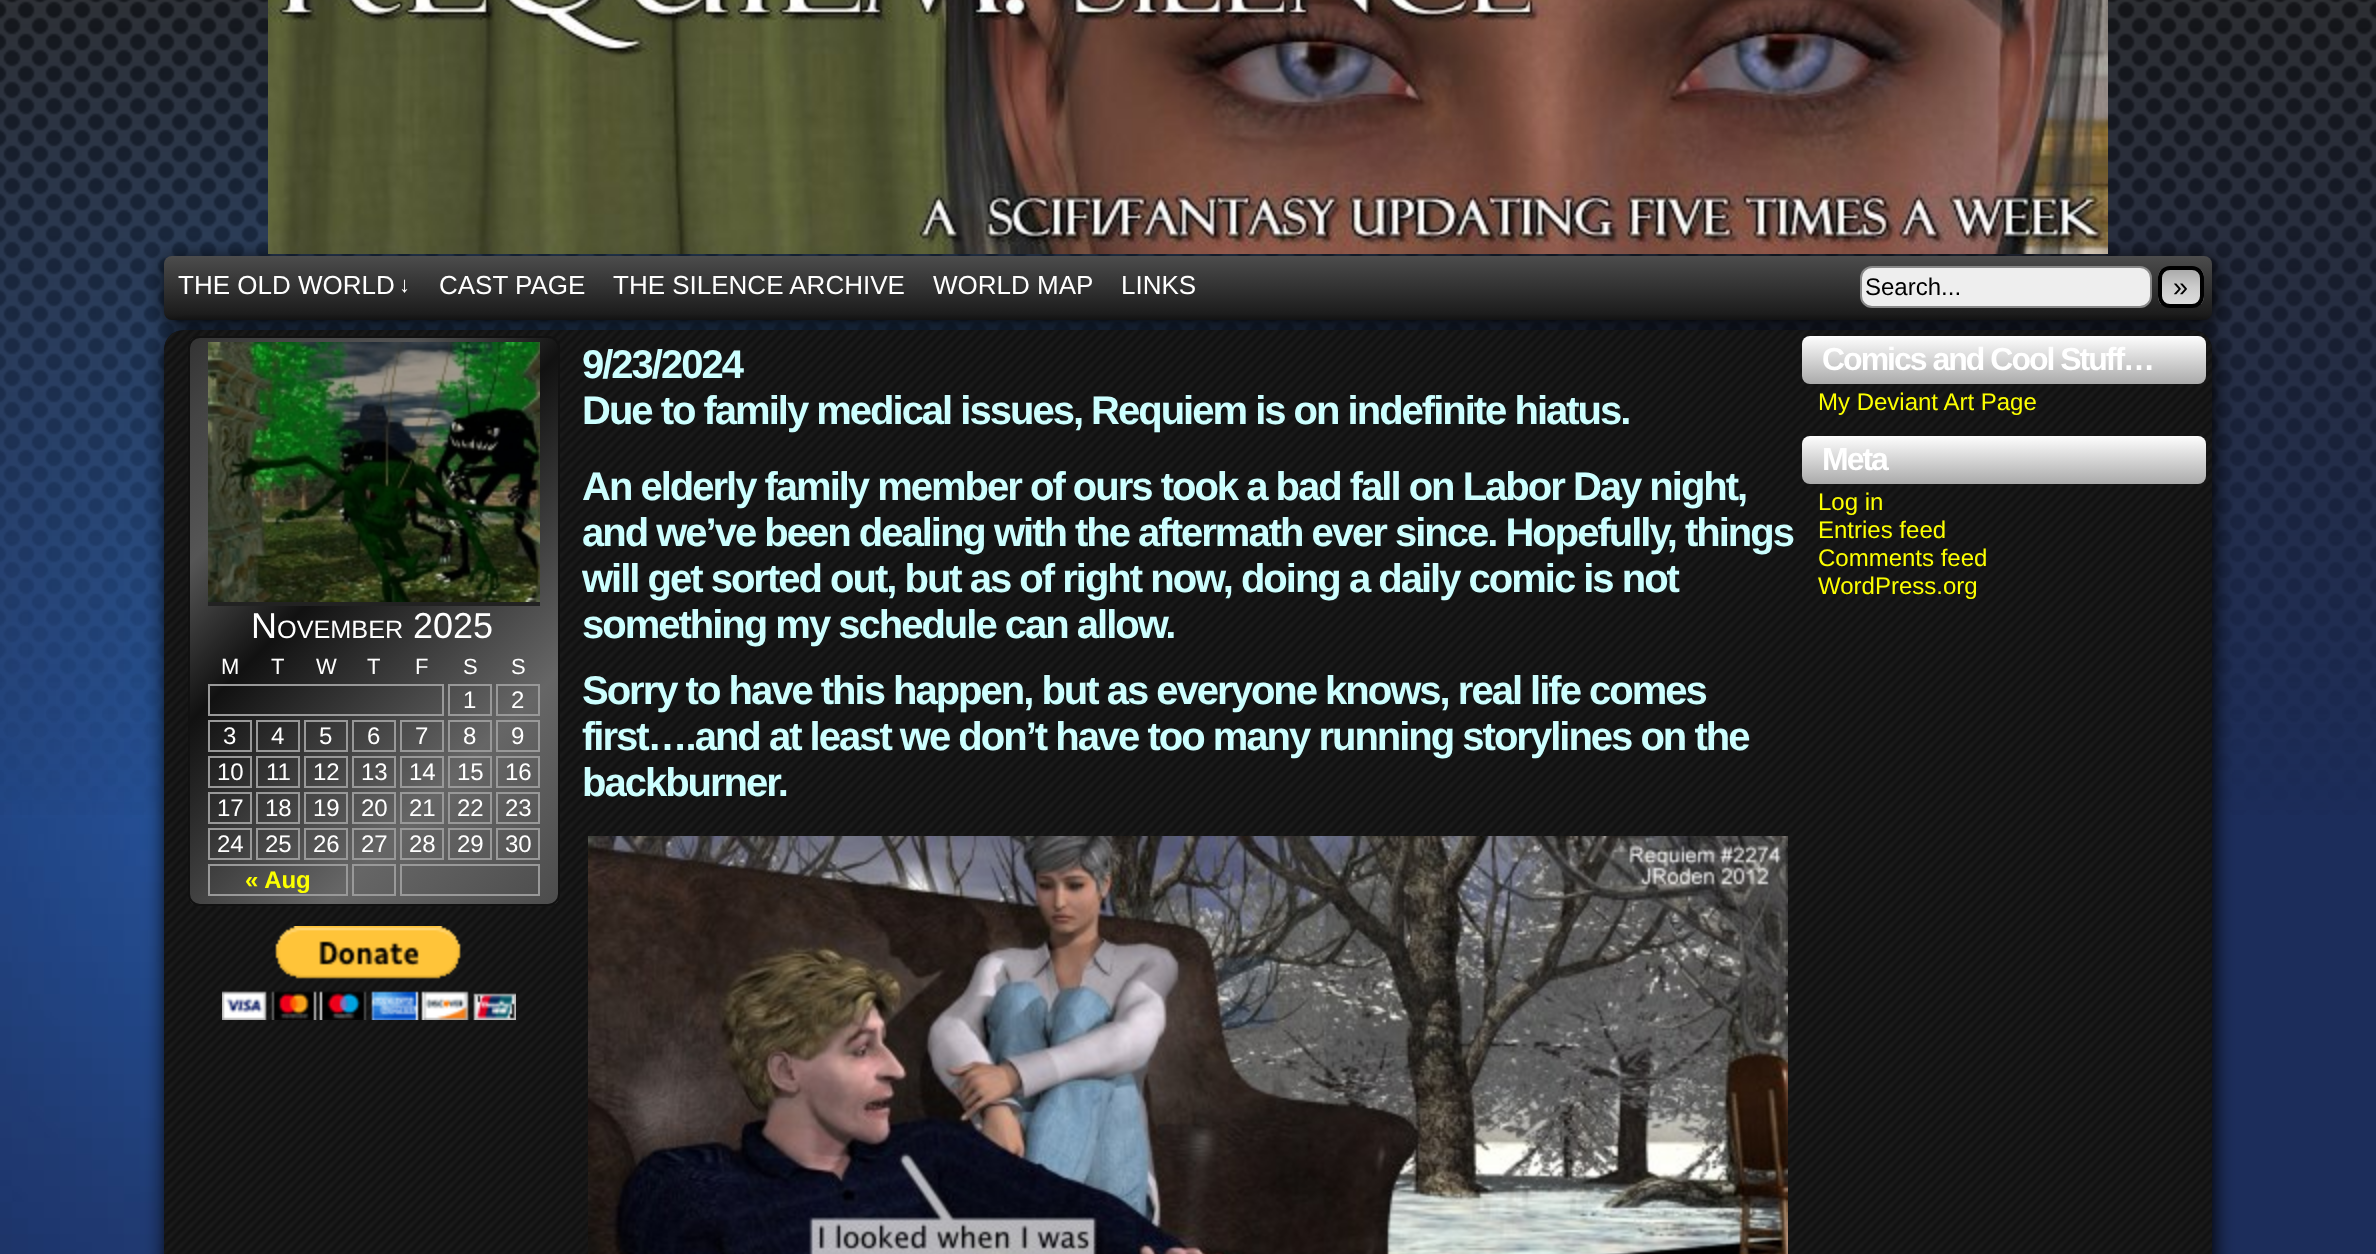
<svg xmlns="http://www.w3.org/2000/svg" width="2376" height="1254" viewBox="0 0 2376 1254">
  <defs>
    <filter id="blur1" x="-50%" y="-200%" width="200%" height="500%"><feGaussianBlur stdDeviation="10"/></filter>
    <linearGradient id="g1" gradientUnits="userSpaceOnUse" x1="1188" y1="256" x2="1188" y2="320"><stop offset="0" stop-color="#4c4c4c"/><stop offset="0.91" stop-color="#1c1c1c"/><stop offset="1" stop-color="#131313"/></linearGradient>
    <clipPath id="clip1"><rect x="2158" y="266" width="46" height="42" rx="12"/></clipPath>
    <linearGradient id="g2" gradientUnits="userSpaceOnUse" x1="2181" y1="270" x2="2181" y2="304"><stop offset="0" stop-color="#aaaaaa"/><stop offset="0.5" stop-color="#cccccc"/><stop offset="1" stop-color="#dddddd"/></linearGradient>
    <clipPath id="clip2"><rect x="188" y="336" width="372" height="570" rx="12"/></clipPath>
    <linearGradient id="g3" gradientUnits="userSpaceOnUse" x1="141" y1="388" x2="608" y2="855"><stop offset="0" stop-color="#333333"/><stop offset="0.09" stop-color="#444444"/><stop offset="0.24" stop-color="#555555"/><stop offset="0.41" stop-color="#111111"/><stop offset="0.75" stop-color="#666666"/><stop offset="0.88" stop-color="#595959"/><stop offset="1" stop-color="#4c4c4c"/></linearGradient>
    <linearGradient id="g4" gradientUnits="userSpaceOnUse" x1="2004" y1="336" x2="2004" y2="384"><stop offset="0" stop-color="#fefefe"/><stop offset="1" stop-color="#aaaaaa"/></linearGradient>
    <linearGradient id="g5" gradientUnits="userSpaceOnUse" x1="2004" y1="436" x2="2004" y2="484"><stop offset="0" stop-color="#fefefe"/><stop offset="1" stop-color="#aaaaaa"/></linearGradient>
  </defs>
  <rect width="100%" height="100%" fill="#ffffff"/>
  <image x="0" y="0" width="2376" height="1254" href="img1.png"/>
  <image x="0" y="0" width="2376" height="815" href="img2.png"/>
  <rect x="166" y="260" width="2048" height="64" rx="8" fill="#000000" filter="url(#blur1)"/>
  <image x="268" y="0" width="1840" height="254" href="img3.png"/>
  <rect x="164" y="256" width="2048" height="64" rx="8" fill="url(#g1)"/>
  <text x="178" y="294" font-family="Liberation Sans" font-size="26" fill="#ffffff">THE OLD WORLD</text>
  <text x="399" y="292" font-family="Liberation Sans" font-size="22" fill="#ffffff">↓</text>
  <text x="439" y="294" font-family="Liberation Sans" font-size="26" fill="#ffffff">CAST PAGE</text>
  <text x="613" y="294" font-family="Liberation Sans" font-size="26" fill="#ffffff">THE SILENCE ARCHIVE</text>
  <text x="933" y="294" font-family="Liberation Sans" font-size="26" fill="#ffffff">WORLD MAP</text>
  <text x="1121" y="294" font-family="Liberation Sans" font-size="26" fill="#ffffff">LINKS</text>
  <rect x="166" y="334" width="2048" height="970" rx="20" fill="#000000" filter="url(#blur1)"/>
  <rect x="1861" y="267" width="290" height="40" rx="11" fill="#eeeeee" stroke="#888888" stroke-width="2"/>
  <text x="1865" y="295" font-family="Liberation Sans" font-size="24" fill="#000000">Search...</text>
  <g clip-path="url(#clip1)">
    <rect x="2158" y="270" width="46" height="34" fill="url(#g2)"/>
  </g>
  <rect x="2160" y="268" width="42" height="38" rx="10" fill="none" stroke="#000000" stroke-width="4"/>
  <text x="2173" y="296" font-family="Liberation Sans" font-size="27" fill="#000000">»</text>
  <rect x="164" y="330" width="2048" height="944" rx="20" fill="#111111"/>
  <image x="164" y="330" width="2048" height="924" href="img4.png"/>
  <g clip-path="url(#clip2)">
    <rect x="190" y="338" width="368" height="566" fill="url(#g3)"/>
  </g>
  <rect x="189" y="337" width="370" height="568" rx="11" fill="none" stroke="#111111" stroke-width="2"/>
  <rect x="208" y="602" width="332" height="4" fill="#222222"/>
  <image x="208" y="342" width="332" height="260" href="img5.png"/>
  <text x="251" y="638" font-family="Liberation Sans" font-size="36" fill="#ffffff">N</text>
  <text x="277" y="638" font-family="Liberation Sans" font-size="25.25" fill="#ffffff">OVEMBER</text>
  <text x="413" y="638" font-family="Liberation Sans" font-size="36" fill="#ffffff">2025</text>
  <text x="221" y="674" font-family="Liberation Sans" font-size="22" fill="#ffffff">M</text>
  <text x="271" y="674" font-family="Liberation Sans" font-size="22" fill="#ffffff">T</text>
  <text x="316" y="674" font-family="Liberation Sans" font-size="22" fill="#ffffff">W</text>
  <text x="367" y="674" font-family="Liberation Sans" font-size="22" fill="#ffffff">T</text>
  <text x="415" y="674" font-family="Liberation Sans" font-size="22" fill="#ffffff">F</text>
  <text x="463" y="674" font-family="Liberation Sans" font-size="22" fill="#ffffff">S</text>
  <text x="511" y="674" font-family="Liberation Sans" font-size="22" fill="#ffffff">S</text>
  <rect x="209" y="685" width="234" height="30" fill="none" stroke="#999999" stroke-width="2"/>
  <rect x="449" y="685" width="42" height="30" fill="none" stroke="#999999" stroke-width="2"/>
  <text x="463" y="708" font-family="Liberation Sans" font-size="24" fill="#ffffff">1</text>
  <rect x="497" y="685" width="42" height="30" fill="none" stroke="#999999" stroke-width="2"/>
  <text x="511" y="708" font-family="Liberation Sans" font-size="24" fill="#ffffff">2</text>
  <rect x="209" y="721" width="42" height="30" fill="none" stroke="#999999" stroke-width="2"/>
  <text x="223" y="744" font-family="Liberation Sans" font-size="24" fill="#ffffff">3</text>
  <rect x="257" y="721" width="42" height="30" fill="none" stroke="#999999" stroke-width="2"/>
  <text x="271" y="744" font-family="Liberation Sans" font-size="24" fill="#ffffff">4</text>
  <rect x="305" y="721" width="42" height="30" fill="none" stroke="#999999" stroke-width="2"/>
  <text x="319" y="744" font-family="Liberation Sans" font-size="24" fill="#ffffff">5</text>
  <rect x="353" y="721" width="42" height="30" fill="none" stroke="#999999" stroke-width="2"/>
  <text x="367" y="744" font-family="Liberation Sans" font-size="24" fill="#ffffff">6</text>
  <rect x="401" y="721" width="42" height="30" fill="none" stroke="#999999" stroke-width="2"/>
  <text x="415" y="744" font-family="Liberation Sans" font-size="24" fill="#ffffff">7</text>
  <rect x="449" y="721" width="42" height="30" fill="none" stroke="#999999" stroke-width="2"/>
  <text x="463" y="744" font-family="Liberation Sans" font-size="24" fill="#ffffff">8</text>
  <rect x="497" y="721" width="42" height="30" fill="none" stroke="#999999" stroke-width="2"/>
  <text x="511" y="744" font-family="Liberation Sans" font-size="24" fill="#ffffff">9</text>
  <rect x="209" y="757" width="42" height="30" fill="none" stroke="#999999" stroke-width="2"/>
  <text x="217" y="780" font-family="Liberation Sans" font-size="24" fill="#ffffff">10</text>
  <rect x="257" y="757" width="42" height="30" fill="none" stroke="#999999" stroke-width="2"/>
  <text x="266" y="780" font-family="Liberation Sans" font-size="24" fill="#ffffff">11</text>
  <rect x="305" y="757" width="42" height="30" fill="none" stroke="#999999" stroke-width="2"/>
  <text x="313" y="780" font-family="Liberation Sans" font-size="24" fill="#ffffff">12</text>
  <rect x="353" y="757" width="42" height="30" fill="none" stroke="#999999" stroke-width="2"/>
  <text x="361" y="780" font-family="Liberation Sans" font-size="24" fill="#ffffff">13</text>
  <rect x="401" y="757" width="42" height="30" fill="none" stroke="#999999" stroke-width="2"/>
  <text x="409" y="780" font-family="Liberation Sans" font-size="24" fill="#ffffff">14</text>
  <rect x="449" y="757" width="42" height="30" fill="none" stroke="#999999" stroke-width="2"/>
  <text x="457" y="780" font-family="Liberation Sans" font-size="24" fill="#ffffff">15</text>
  <rect x="497" y="757" width="42" height="30" fill="none" stroke="#999999" stroke-width="2"/>
  <text x="505" y="780" font-family="Liberation Sans" font-size="24" fill="#ffffff">16</text>
  <rect x="209" y="793" width="42" height="30" fill="none" stroke="#999999" stroke-width="2"/>
  <text x="217" y="816" font-family="Liberation Sans" font-size="24" fill="#ffffff">17</text>
  <rect x="257" y="793" width="42" height="30" fill="none" stroke="#999999" stroke-width="2"/>
  <text x="265" y="816" font-family="Liberation Sans" font-size="24" fill="#ffffff">18</text>
  <rect x="305" y="793" width="42" height="30" fill="none" stroke="#999999" stroke-width="2"/>
  <text x="313" y="816" font-family="Liberation Sans" font-size="24" fill="#ffffff">19</text>
  <rect x="353" y="793" width="42" height="30" fill="none" stroke="#999999" stroke-width="2"/>
  <text x="361" y="816" font-family="Liberation Sans" font-size="24" fill="#ffffff">20</text>
  <rect x="401" y="793" width="42" height="30" fill="none" stroke="#999999" stroke-width="2"/>
  <text x="409" y="816" font-family="Liberation Sans" font-size="24" fill="#ffffff">21</text>
  <rect x="449" y="793" width="42" height="30" fill="none" stroke="#999999" stroke-width="2"/>
  <text x="457" y="816" font-family="Liberation Sans" font-size="24" fill="#ffffff">22</text>
  <rect x="497" y="793" width="42" height="30" fill="none" stroke="#999999" stroke-width="2"/>
  <text x="505" y="816" font-family="Liberation Sans" font-size="24" fill="#ffffff">23</text>
  <rect x="209" y="829" width="42" height="30" fill="none" stroke="#999999" stroke-width="2"/>
  <text x="217" y="852" font-family="Liberation Sans" font-size="24" fill="#ffffff">24</text>
  <rect x="257" y="829" width="42" height="30" fill="none" stroke="#999999" stroke-width="2"/>
  <text x="265" y="852" font-family="Liberation Sans" font-size="24" fill="#ffffff">25</text>
  <rect x="305" y="829" width="42" height="30" fill="none" stroke="#999999" stroke-width="2"/>
  <text x="313" y="852" font-family="Liberation Sans" font-size="24" fill="#ffffff">26</text>
  <rect x="353" y="829" width="42" height="30" fill="none" stroke="#999999" stroke-width="2"/>
  <text x="361" y="852" font-family="Liberation Sans" font-size="24" fill="#ffffff">27</text>
  <rect x="401" y="829" width="42" height="30" fill="none" stroke="#999999" stroke-width="2"/>
  <text x="409" y="852" font-family="Liberation Sans" font-size="24" fill="#ffffff">28</text>
  <rect x="449" y="829" width="42" height="30" fill="none" stroke="#999999" stroke-width="2"/>
  <text x="457" y="852" font-family="Liberation Sans" font-size="24" fill="#ffffff">29</text>
  <rect x="497" y="829" width="42" height="30" fill="none" stroke="#999999" stroke-width="2"/>
  <text x="505" y="852" font-family="Liberation Sans" font-size="24" fill="#ffffff">30</text>
  <rect x="209" y="865" width="138" height="30" fill="none" stroke="#999999" stroke-width="2"/>
  <text x="245" y="888" font-family="Liberation Sans" font-size="24" font-weight="bold" fill="#fcff00">« Aug</text>
  <rect x="353" y="865" width="42" height="30" fill="none" stroke="#999999" stroke-width="2"/>
  <rect x="401" y="865" width="138" height="30" fill="none" stroke="#999999" stroke-width="2"/>
  <image x="222" y="926" width="294" height="94" href="img6.png"/>
  <text x="582" y="378" font-family="Liberation Sans" font-size="40" font-weight="bold" letter-spacing="-2" fill="#ccffff">9/23/2024</text>
  <text x="582" y="424" font-family="Liberation Sans" font-size="40" font-weight="bold" letter-spacing="-2" fill="#ccffff">Due to family medical issues, Requiem is on indefinite hiatus.</text>
  <text x="582" y="500" font-family="Liberation Sans" font-size="40" font-weight="bold" letter-spacing="-2" fill="#ccffff">An elderly family member of ours took a bad fall on Labor Day night,</text>
  <text x="582" y="546" font-family="Liberation Sans" font-size="40" font-weight="bold" letter-spacing="-2" fill="#ccffff">and we’ve been dealing with the aftermath ever since. Hopefully, things</text>
  <text x="582" y="592" font-family="Liberation Sans" font-size="40" font-weight="bold" letter-spacing="-2" fill="#ccffff">will get sorted out, but as of right now, doing a daily comic is not</text>
  <text x="582" y="638" font-family="Liberation Sans" font-size="40" font-weight="bold" letter-spacing="-2" fill="#ccffff">something my schedule can allow.</text>
  <text x="582" y="704" font-family="Liberation Sans" font-size="40" font-weight="bold" letter-spacing="-2" fill="#ccffff">Sorry to have this happen, but as everyone knows, real life comes</text>
  <text x="582" y="750" font-family="Liberation Sans" font-size="40" font-weight="bold" letter-spacing="-2" fill="#ccffff">first….and at least we don’t have too many running storylines on the</text>
  <text x="582" y="796" font-family="Liberation Sans" font-size="40" font-weight="bold" letter-spacing="-2" fill="#ccffff">backburner.</text>
  <image x="588" y="836" width="1200" height="418" href="img7.png"/>
  <rect x="1802" y="336" width="404" height="48" rx="8" fill="url(#g4)"/>
  <text x="1822" y="370" font-family="Liberation Sans" font-size="32" font-weight="bold" letter-spacing="-2" fill="#ffffff">Comics and Cool Stuff…</text>
  <text x="1818" y="410" font-family="Liberation Sans" font-size="24" fill="#fcff00">My Deviant Art Page</text>
  <rect x="1802" y="436" width="404" height="48" rx="8" fill="url(#g5)"/>
  <text x="1822" y="470" font-family="Liberation Sans" font-size="32" font-weight="bold" letter-spacing="-2" fill="#ffffff">Meta</text>
  <text x="1818" y="510" font-family="Liberation Sans" font-size="24" fill="#fcff00">Log in</text>
  <text x="1818" y="538" font-family="Liberation Sans" font-size="24" fill="#fcff00">Entries feed</text>
  <text x="1818" y="566" font-family="Liberation Sans" font-size="24" fill="#fcff00">Comments feed</text>
  <text x="1818" y="594" font-family="Liberation Sans" font-size="24" fill="#fcff00">WordPress.org</text>
</svg>
